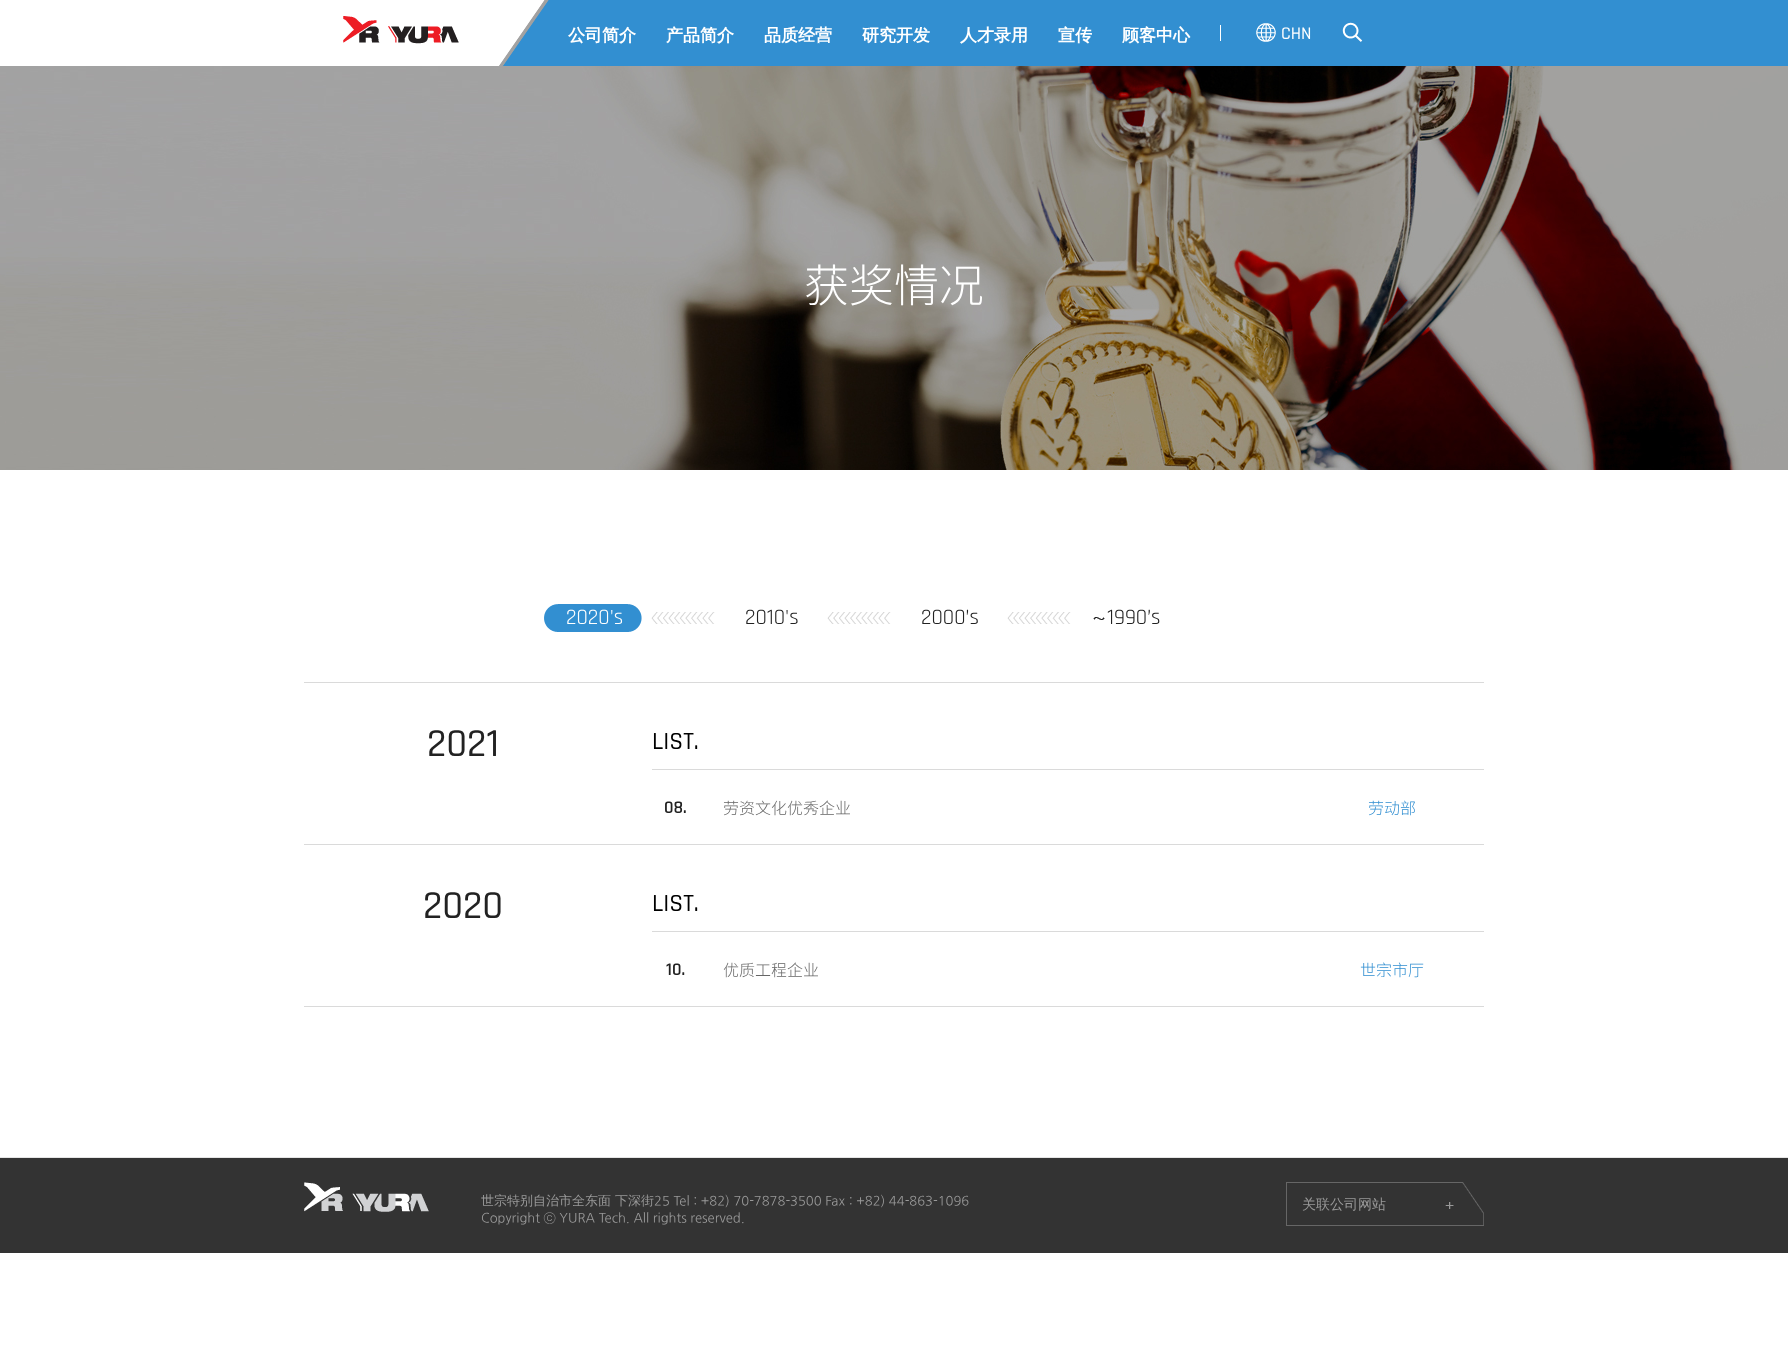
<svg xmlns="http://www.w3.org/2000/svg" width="1788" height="1358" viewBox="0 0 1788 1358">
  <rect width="100%" height="100%" fill="#ffffff"/>
  <image x="0" y="0" width="1788" height="470" href="img6.png"/>
  <image x="0" y="0" width="1788" height="66" href="img1.png"/>
  <image x="498" y="0" width="51" height="66" href="img2.png"/>
  <image x="343" y="16" width="116" height="28" href="img3.png"/>
  <text x="568" y="41" font-family="WenQuanYi Zen Hei" font-size="17" font-weight="bold" fill="#ffffff">公司简介</text>
  <text x="666" y="41" font-family="WenQuanYi Zen Hei" font-size="17" font-weight="bold" fill="#ffffff">产品简介</text>
  <text x="764" y="41" font-family="WenQuanYi Zen Hei" font-size="17" font-weight="bold" fill="#ffffff">品质经营</text>
  <text x="862" y="41" font-family="WenQuanYi Zen Hei" font-size="17" font-weight="bold" fill="#ffffff">研究开发</text>
  <text x="960" y="41" font-family="WenQuanYi Zen Hei" font-size="17" font-weight="bold" fill="#ffffff">人才录用</text>
  <text x="1058" y="41" font-family="WenQuanYi Zen Hei" font-size="17" font-weight="bold" fill="#ffffff">宣传</text>
  <text x="1122" y="41" font-family="WenQuanYi Zen Hei" font-size="17" font-weight="bold" fill="#ffffff">顾客中心</text>
  <rect x="1220" y="25" width="1" height="16" fill="#ffffff"/>
  <image x="1256" y="23" width="20" height="19" href="img4.png"/>
  <text x="1281" y="39" font-family="Rajdhani" font-size="18" font-weight="500" fill="#ffffff">CHN</text>
  <image x="1342" y="22" width="21" height="20" href="img5.png"/>
  <text x="804" y="302" font-family="Noto Sans SC" font-size="45" font-weight="300" fill="#ffffff">获奖情况</text>
  <rect x="304" y="1006" width="1180" height="1" fill="#dadada"/>
  <image x="651" y="612" width="64" height="12" href="img7.png"/>
  <image x="544" y="604" width="98" height="28" href="img8.png"/>
  <text x="566" y="624" font-family="Rajdhani" font-size="22" fill="#ffffff">2020's</text>
  <image x="827" y="612" width="64" height="12" href="img7.png"/>
  <text x="745" y="624" font-family="Rajdhani" font-size="22" fill="#222222">2010's</text>
  <image x="1007" y="612" width="64" height="12" href="img7.png"/>
  <text x="921" y="624" font-family="Rajdhani" font-size="22" fill="#222222">2000’s</text>
  <image x="1093" y="617" width="12" height="3" href="img9.png"/>
  <text x="1107" y="624" font-family="Rajdhani" font-size="22" fill="#222222">1990’s</text>
  <rect x="304" y="682" width="1180" height="1" fill="#dadada"/>
  <text x="427" y="756" font-family="Rajdhani" font-size="40" font-weight="500" fill="#222222">2021</text>
  <text x="652" y="749" font-family="Rajdhani" font-size="25" font-weight="500" fill="#000000">LIST.</text>
  <text x="664" y="813" font-family="Rajdhani" font-size="18" font-weight="600" fill="#222222">08.</text>
  <text x="723" y="814" font-family="Noto Sans SC" font-size="16" font-weight="300" fill="#666666">劳资文化优秀企业</text>
  <rect x="652" y="769" width="832" height="1" fill="#dadada"/>
  <text x="1368" y="814" font-family="Noto Sans SC" font-size="16" font-weight="300" fill="#328fd1">劳动部</text>
  <rect x="304" y="844" width="1180" height="1" fill="#dadada"/>
  <text x="423" y="918" font-family="Rajdhani" font-size="40" font-weight="500" fill="#222222">2020</text>
  <text x="652" y="911" font-family="Rajdhani" font-size="25" font-weight="500" fill="#000000">LIST.</text>
  <text x="666" y="975" font-family="Rajdhani" font-size="18" font-weight="600" fill="#222222">10.</text>
  <text x="723" y="976" font-family="Noto Sans SC" font-size="16" font-weight="300" fill="#666666">优质工程企业</text>
  <rect x="652" y="931" width="832" height="1" fill="#dadada"/>
  <text x="1360" y="976" font-family="Noto Sans SC" font-size="16" font-weight="300" fill="#328fd1">世宗市厅</text>
  <rect x="0" y="1158" width="1788" height="95" fill="#333333"/>
  <rect x="0" y="1157" width="1788" height="1" fill="#e5e5e5"/>
  <image x="304" y="1182" width="125" height="30" href="img10.png"/>
  <text x="481" y="1205" font-family="WenQuanYi Zen Hei" font-size="13" font-weight="500" fill="#999999">世宗特别自治市全东面 下深街</text>
  <text x="654" y="1205" font-family="NanumGothic" font-size="13" fill="#999999">25 Tel : +82) 70-7878-3500 Fax : +82) 44-863-1096</text>
  <text x="481" y="1222" font-family="NanumGothic" font-size="13" fill="#999999">Copyright ⓒ YURA Tech. All rights reserved.</text>
  <image x="1286" y="1182" width="198" height="44" href="img11.png"/>
  <image x="1445" y="1202" width="9" height="7" href="img12.png"/>
  <text x="1302" y="1209" font-family="WenQuanYi Zen Hei" font-size="14" font-weight="500" fill="#999999">关联公司网站</text>
</svg>
